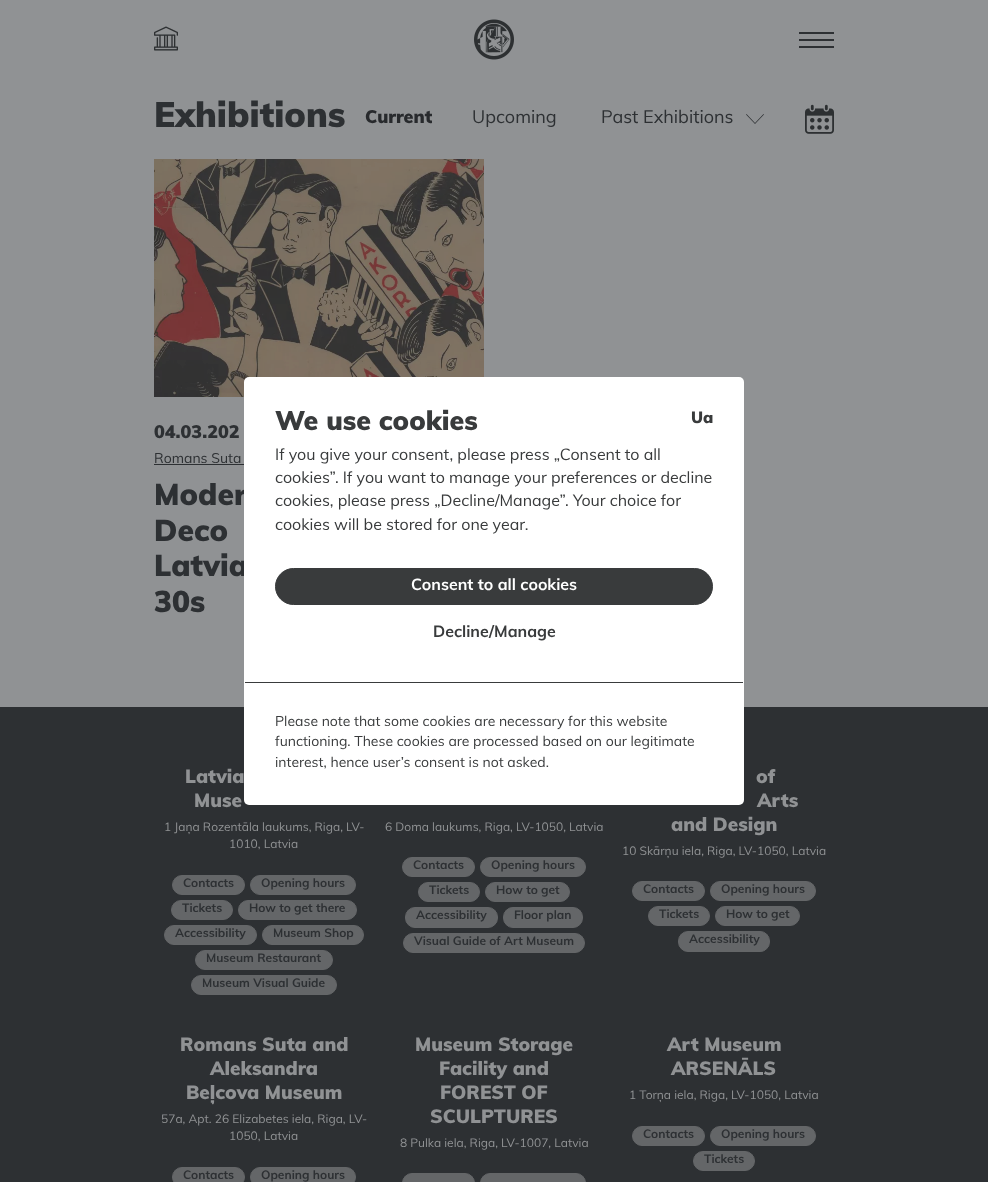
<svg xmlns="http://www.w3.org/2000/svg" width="988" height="1182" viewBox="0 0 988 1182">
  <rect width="100%" height="100%" fill="#909294"/>
  <image x="154" y="26" width="24" height="25" href="img1.png"/>
  <image x="474" y="19" width="40" height="41" href="img2.png"/>
  <rect x="799" y="39" width="35" height="2" fill="#2d3033"/>
  <rect x="799" y="32" width="35" height="2" fill="#2d3033"/>
  <rect x="799" y="46" width="35" height="2" fill="#2d3033"/>
  <text x="154" y="127" font-family="Muli" font-size="35" font-weight="900" fill="#2d3033">Exhibitions</text>
  <text x="365" y="123" font-family="Muli" font-size="18" font-weight="900" fill="#282a2d">Current</text>
  <text x="472" y="123" font-family="Muli" font-size="18" fill="#2d3033">Upcoming</text>
  <path d="M755 124L764 114.5L763.5 114L755 123L746.5 114L746 114.5Z" fill="#2d3033"/>
  <text x="601" y="123" font-family="Muli" font-size="18" fill="#2d3033">Past Exhibitions</text>
  <image x="805" y="104" width="29" height="30" href="img3.png"/>
  <image x="154" y="159" width="330" height="238" href="img4.png"/>
  <text x="154" y="438" font-family="Muli" font-size="18" font-weight="900" fill="#2d3033">04.03.202</text>
  <text x="154" y="463" font-family="Muli" font-size="14" fill="#2d3033">Romans Suta</text>
  <rect x="154" y="464" width="90" height="1" fill="#2d3033"/>
  <text x="154" y="505" font-family="Muli" font-size="30" font-weight="900" fill="#2d3033">Moder</text>
  <text x="154" y="541" font-family="Muli" font-size="30" font-weight="900" fill="#2d3033">Deco</text>
  <text x="154" y="576" font-family="Muli" font-size="30" font-weight="900" fill="#2d3033">Latvia</text>
  <text x="154" y="612" font-family="Muli" font-size="30" font-weight="900" fill="#2d3033">30s</text>
  <rect x="0" y="707" width="988" height="475" fill="#2d3033"/>
  <text x="185" y="783" font-family="Muli" font-size="19" font-weight="900" fill="#909294">Latvia</text>
  <text x="194" y="807" font-family="Muli" font-size="19" font-weight="900" fill="#909294">Muse</text>
  <text x="164" y="831" font-family="Muli" font-size="12" fill="#909294">1 Jaņa Rozentāla laukums, Riga, LV-</text>
  <text x="229" y="848" font-family="Muli" font-size="12" fill="#909294">1010, Latvia</text>
  <rect x="172.5" y="875.5" width="72" height="19" rx="9.5" fill="#646668" stroke="#646668"/>
  <text x="183" y="887" font-family="Muli" font-size="12" font-weight="bold" fill="#2d3033">Contacts</text>
  <rect x="250.5" y="875.5" width="105" height="19" rx="9.5" fill="#646668" stroke="#646668"/>
  <text x="261" y="887" font-family="Muli" font-size="12" font-weight="bold" fill="#2d3033">Opening hours</text>
  <rect x="171.5" y="900.5" width="61" height="19" rx="9.5" fill="#646668" stroke="#646668"/>
  <text x="182" y="912" font-family="Muli" font-size="12" font-weight="bold" fill="#2d3033">Tickets</text>
  <rect x="238.5" y="900.5" width="118" height="19" rx="9.5" fill="#646668" stroke="#646668"/>
  <text x="249" y="912" font-family="Muli" font-size="12" font-weight="bold" fill="#2d3033">How to get there</text>
  <rect x="164.5" y="925.5" width="92" height="19" rx="9.5" fill="#646668" stroke="#646668"/>
  <text x="175" y="937" font-family="Muli" font-size="12" font-weight="bold" fill="#2d3033">Accessibility</text>
  <rect x="262.5" y="925.5" width="101" height="19" rx="9.5" fill="#646668" stroke="#646668"/>
  <text x="273" y="937" font-family="Muli" font-size="12" font-weight="bold" fill="#2d3033">Museum Shop</text>
  <rect x="195.5" y="950.5" width="137" height="19" rx="9.5" fill="#646668" stroke="#646668"/>
  <text x="206" y="962" font-family="Muli" font-size="12" font-weight="bold" fill="#2d3033">Museum Restaurant</text>
  <rect x="191.5" y="975.5" width="145" height="19" rx="9.5" fill="#646668" stroke="#646668"/>
  <text x="202" y="987" font-family="Muli" font-size="12" font-weight="bold" fill="#2d3033">Museum Visual Guide</text>
  <text x="385" y="831" font-family="Muli" font-size="12" fill="#909294">6 Doma laukums, Riga, LV-1050, Latvia</text>
  <rect x="402.5" y="857.5" width="72" height="19" rx="9.5" fill="#646668" stroke="#646668"/>
  <text x="413" y="869" font-family="Muli" font-size="12" font-weight="bold" fill="#2d3033">Contacts</text>
  <rect x="480.5" y="857.5" width="105" height="19" rx="9.5" fill="#646668" stroke="#646668"/>
  <text x="491" y="869" font-family="Muli" font-size="12" font-weight="bold" fill="#2d3033">Opening hours</text>
  <rect x="418.5" y="882.5" width="61" height="19" rx="9.5" fill="#646668" stroke="#646668"/>
  <text x="429" y="894" font-family="Muli" font-size="12" font-weight="bold" fill="#2d3033">Tickets</text>
  <rect x="485.5" y="882.5" width="84" height="19" rx="9.5" fill="#646668" stroke="#646668"/>
  <text x="496" y="894" font-family="Muli" font-size="12" font-weight="bold" fill="#2d3033">How to get</text>
  <rect x="405.5" y="907.5" width="92" height="20" rx="9.5" fill="#646668" stroke="#646668"/>
  <text x="416" y="919" font-family="Muli" font-size="12" font-weight="bold" fill="#2d3033">Accessibility</text>
  <rect x="503.5" y="907.5" width="79" height="20" rx="9.5" fill="#646668" stroke="#646668"/>
  <text x="514" y="919" font-family="Muli" font-size="12" font-weight="bold" fill="#2d3033">Floor plan</text>
  <rect x="403.5" y="933.5" width="181" height="19" rx="9.5" fill="#646668" stroke="#646668"/>
  <text x="414" y="945" font-family="Muli" font-size="12" font-weight="bold" fill="#2d3033">Visual Guide of Art Museum</text>
  <text x="756" y="783" font-family="Muli" font-size="19" font-weight="900" fill="#909294">of</text>
  <text x="757" y="807" font-family="Muli" font-size="19" font-weight="900" fill="#909294">Arts</text>
  <text x="671" y="831" font-family="Muli" font-size="19" font-weight="900" fill="#909294">and Design</text>
  <text x="622" y="855" font-family="Muli" font-size="12" fill="#909294">10 Skārņu iela, Riga, LV-1050, Latvia</text>
  <rect x="632.5" y="881.5" width="72" height="19" rx="9.5" fill="#646668" stroke="#646668"/>
  <text x="643" y="893" font-family="Muli" font-size="12" font-weight="bold" fill="#2d3033">Contacts</text>
  <rect x="710.5" y="881.5" width="105" height="19" rx="9.5" fill="#646668" stroke="#646668"/>
  <text x="721" y="893" font-family="Muli" font-size="12" font-weight="bold" fill="#2d3033">Opening hours</text>
  <rect x="648.5" y="906.5" width="61" height="19" rx="9.5" fill="#646668" stroke="#646668"/>
  <text x="659" y="918" font-family="Muli" font-size="12" font-weight="bold" fill="#2d3033">Tickets</text>
  <rect x="715.5" y="906.5" width="84" height="19" rx="9.5" fill="#646668" stroke="#646668"/>
  <text x="726" y="918" font-family="Muli" font-size="12" font-weight="bold" fill="#2d3033">How to get</text>
  <rect x="678.5" y="931.5" width="91" height="20" rx="9.5" fill="#646668" stroke="#646668"/>
  <text x="689" y="943" font-family="Muli" font-size="12" font-weight="bold" fill="#2d3033">Accessibility</text>
  <text x="180" y="1051" font-family="Muli" font-size="19" font-weight="900" fill="#909294">Romans Suta and</text>
  <text x="210" y="1075" font-family="Muli" font-size="19" font-weight="900" fill="#909294">Aleksandra</text>
  <text x="186" y="1099" font-family="Muli" font-size="19" font-weight="900" fill="#909294">Beļcova Museum</text>
  <text x="161" y="1123" font-family="Muli" font-size="12" fill="#909294">57a, Apt. 26 Elizabetes iela, Riga, LV-</text>
  <text x="229" y="1140" font-family="Muli" font-size="12" fill="#909294">1050, Latvia</text>
  <rect x="172.5" y="1167.5" width="72" height="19" rx="9.5" fill="#646668" stroke="#646668"/>
  <text x="183" y="1179" font-family="Muli" font-size="12" font-weight="bold" fill="#2d3033">Contacts</text>
  <rect x="250.5" y="1167.5" width="105" height="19" rx="9.5" fill="#646668" stroke="#646668"/>
  <text x="261" y="1179" font-family="Muli" font-size="12" font-weight="bold" fill="#2d3033">Opening hours</text>
  <text x="415" y="1051" font-family="Muli" font-size="19" font-weight="900" fill="#909294">Museum Storage</text>
  <text x="439" y="1075" font-family="Muli" font-size="19" font-weight="900" fill="#909294">Facility and</text>
  <text x="440" y="1099" font-family="Muli" font-size="19" font-weight="900" fill="#909294">FOREST OF</text>
  <text x="430" y="1123" font-family="Muli" font-size="19" font-weight="900" fill="#909294">SCULPTURES</text>
  <text x="400" y="1147" font-family="Muli" font-size="12" fill="#909294">8 Pulka iela, Riga, LV-1007, Latvia</text>
  <rect x="402.5" y="1173.5" width="72" height="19" rx="9.5" fill="#646668" stroke="#646668"/>
  <rect x="480.5" y="1173.5" width="105" height="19" rx="9.5" fill="#646668" stroke="#646668"/>
  <text x="667" y="1051" font-family="Muli" font-size="19" font-weight="900" fill="#909294">Art Museum</text>
  <text x="671" y="1075" font-family="Muli" font-size="19" font-weight="900" fill="#909294">ARSENĀLS</text>
  <text x="629" y="1099" font-family="Muli" font-size="12" fill="#909294">1 Torņa iela, Riga, LV-1050, Latvia</text>
  <rect x="632.5" y="1126.5" width="72" height="19" rx="9.5" fill="#646668" stroke="#646668"/>
  <text x="643" y="1138" font-family="Muli" font-size="12" font-weight="bold" fill="#2d3033">Contacts</text>
  <rect x="710.5" y="1126.5" width="105" height="19" rx="9.5" fill="#646668" stroke="#646668"/>
  <text x="721" y="1138" font-family="Muli" font-size="12" font-weight="bold" fill="#2d3033">Opening hours</text>
  <rect x="693.5" y="1151.5" width="61" height="19" rx="9.5" fill="#646668" stroke="#646668"/>
  <text x="704" y="1163" font-family="Muli" font-size="12" font-weight="bold" fill="#2d3033">Tickets</text>
  <rect x="244" y="377" width="500" height="428" rx="5" fill="#ffffff"/>
  <text x="275" y="430" font-family="Muli" font-size="26.75" font-weight="900" fill="#393b3c">We use cookies</text>
  <text x="691" y="423" font-family="Muli" font-size="16" font-weight="900" fill="#393b3c">Ua</text>
  <text x="275" y="460" font-family="Muli" font-size="16" fill="#393b3c">If you give your consent, please press „Consent to all</text>
  <text x="275" y="483" font-family="Muli" font-size="16" fill="#393b3c">cookies”. If you want to manage your preferences or decline</text>
  <text x="275" y="506" font-family="Muli" font-size="16" fill="#393b3c">cookies, please press „Decline/Manage”. Your choice for</text>
  <text x="275" y="530" font-family="Muli" font-size="16" fill="#393b3c">cookies will be stored for one year.</text>
  <rect x="275.5" y="568.5" width="437" height="36" rx="18" fill="#393b3c" stroke="#393b3c"/>
  <text x="411" y="590" font-family="Muli" font-size="16" font-weight="bold" fill="#ffffff">Consent to all cookies</text>
  <text x="433" y="637" font-family="Muli" font-size="16" font-weight="bold" fill="#393b3c">Decline/Manage</text>
  <rect x="245" y="682" width="498" height="1" fill="#393b3c"/>
  <text x="275" y="726" font-family="Muli" font-size="14" fill="#393b3c">Please note that some cookies are necessary for this website</text>
  <text x="275" y="746" font-family="Muli" font-size="14" fill="#393b3c">functioning. These cookies are processed based on our legitimate</text>
  <text x="275" y="767" font-family="Muli" font-size="14" fill="#393b3c">interest, hence user’s consent is not asked.</text>
</svg>
